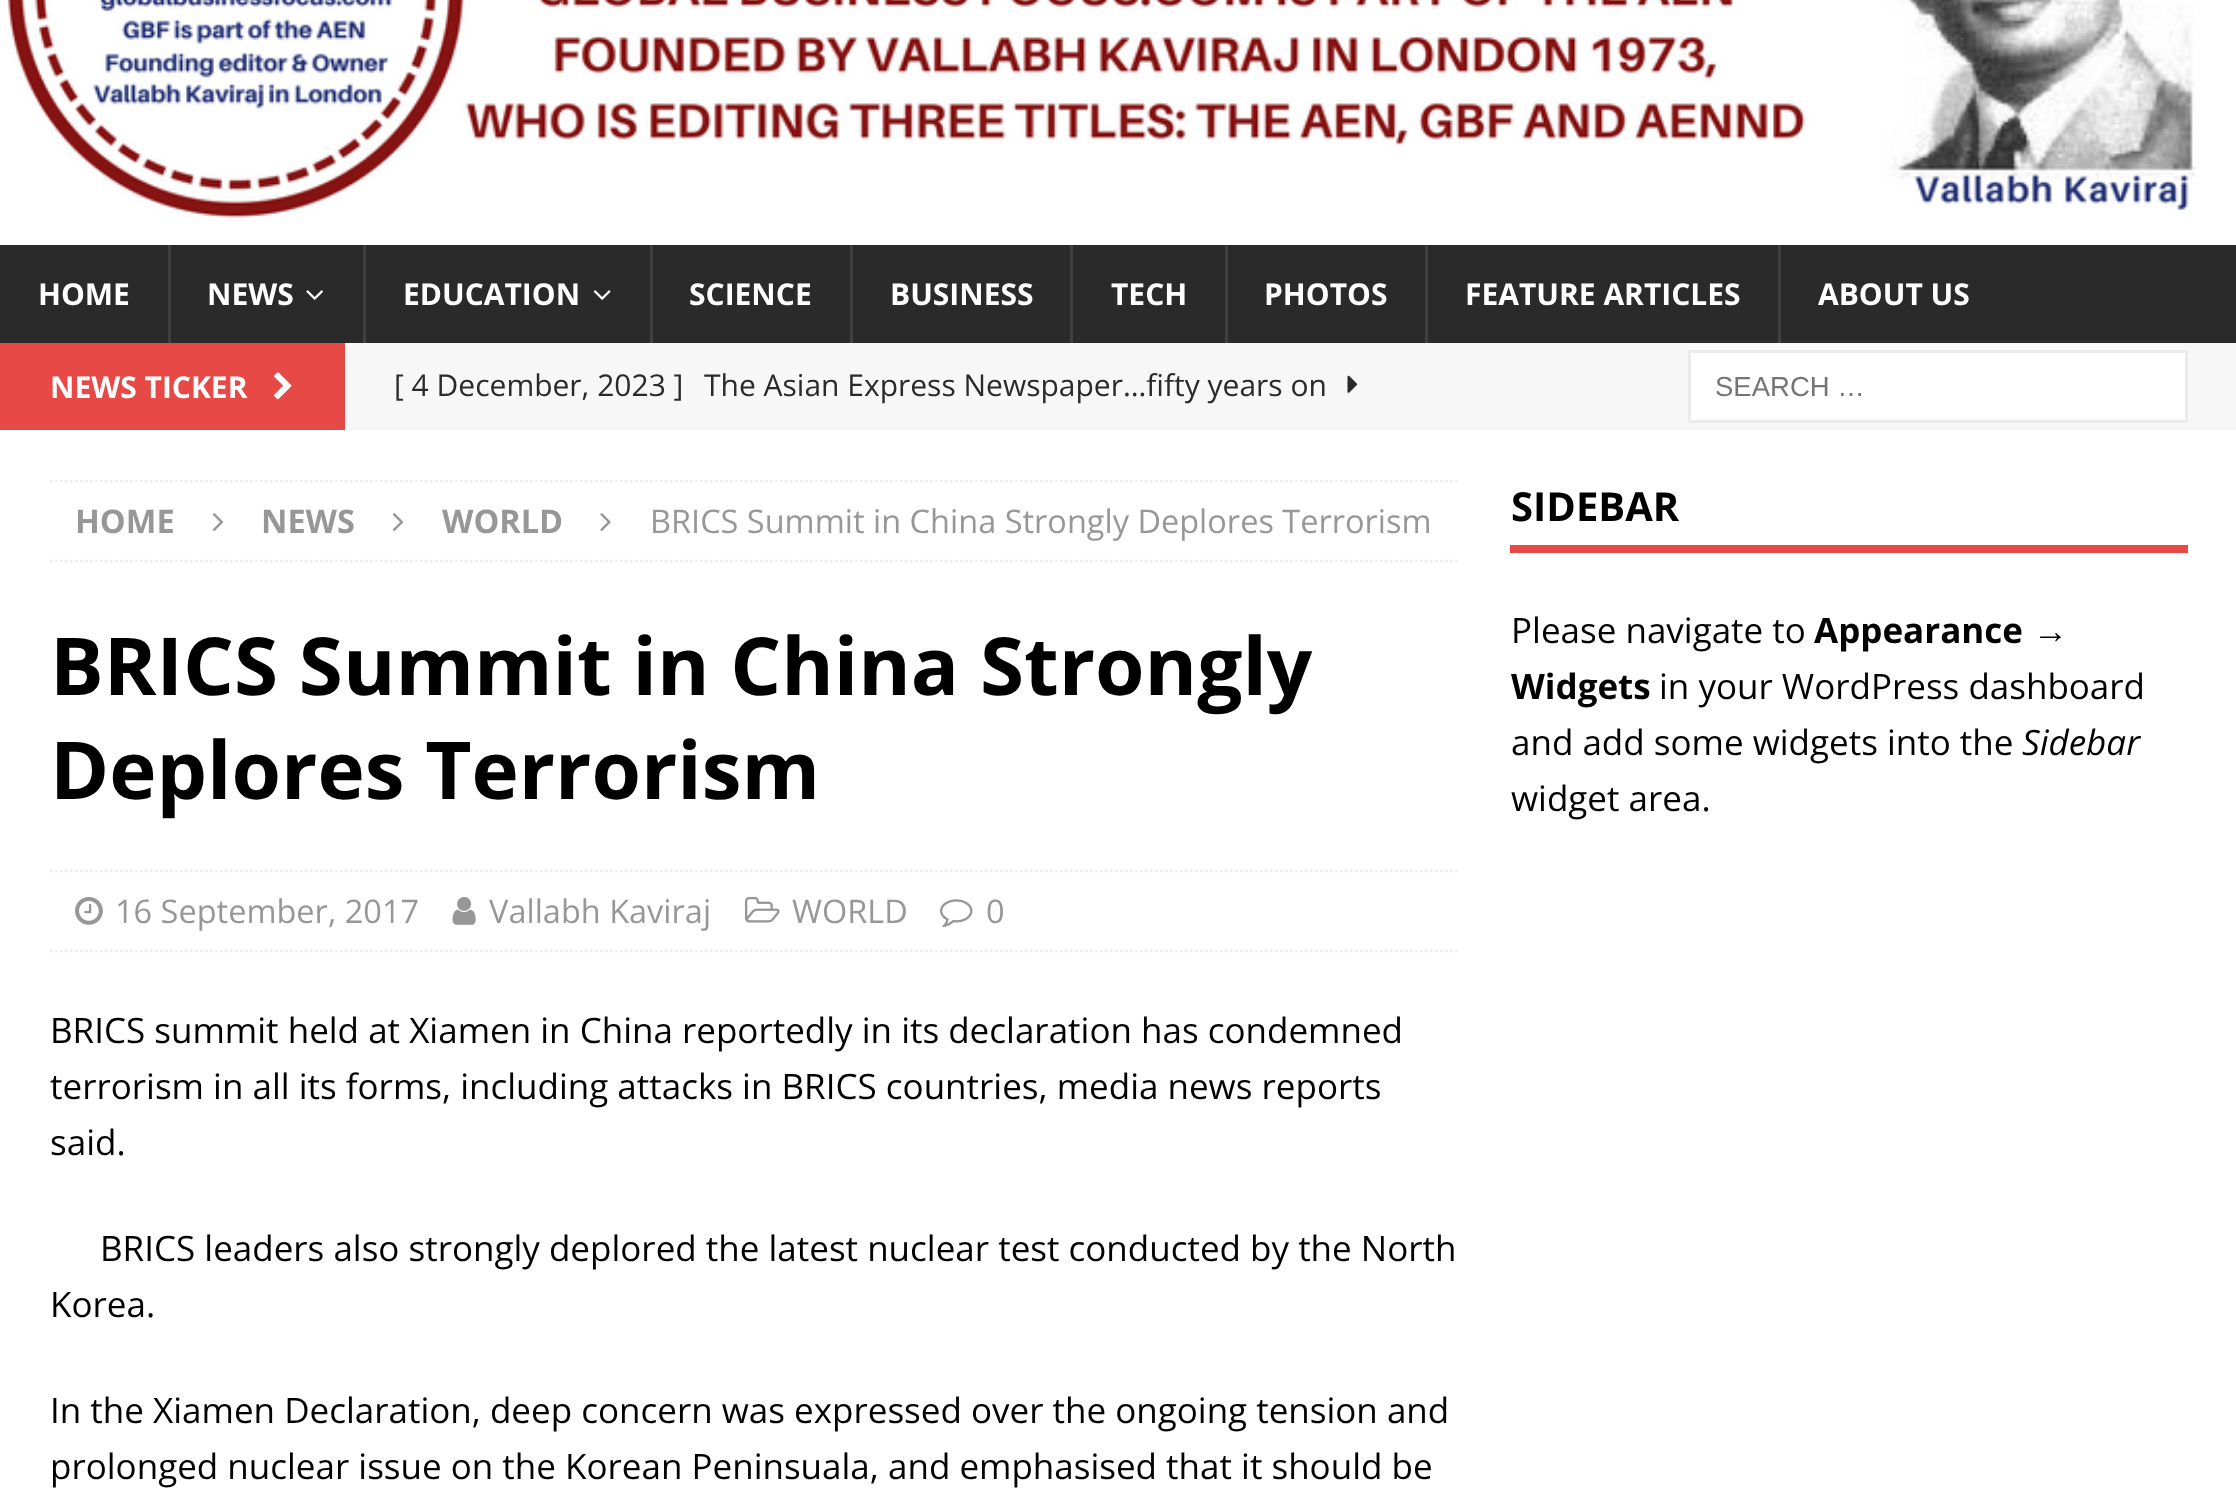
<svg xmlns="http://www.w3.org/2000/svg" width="2236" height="1495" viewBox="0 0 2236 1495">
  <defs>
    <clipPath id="clip1"><rect x="50" y="480" width="1408" height="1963"/></clipPath>
  </defs>
  <rect width="100%" height="100%" fill="#f7f7f7"/>
  <image x="0" y="0" width="2236" height="245" href="img1.png"/>
  <rect x="0" y="245" width="2236" height="98" fill="#2a2a2a"/>
  <text x="38" y="305" font-family="Open Sans" font-size="30" font-weight="bold" fill="#ffffff">HOME</text>
  <rect x="168" y="245" width="3" height="98" fill="#3f3f3f"/>
  <text x="207" y="305" font-family="Open Sans" font-size="30" font-weight="bold" fill="#ffffff">NEWS</text>
  <image x="306" y="290" width="17" height="10" href="img2.png"/>
  <rect x="363" y="245" width="3" height="98" fill="#3f3f3f"/>
  <text x="403" y="305" font-family="Open Sans" font-size="30" font-weight="bold" fill="#ffffff">EDUCATION</text>
  <image x="593" y="290" width="18" height="10" href="img3.png"/>
  <rect x="650" y="245" width="3" height="98" fill="#3f3f3f"/>
  <text x="689" y="305" font-family="Open Sans" font-size="30" font-weight="bold" fill="#ffffff">SCIENCE</text>
  <rect x="850" y="245" width="3" height="98" fill="#3f3f3f"/>
  <text x="890" y="305" font-family="Open Sans" font-size="30" font-weight="bold" fill="#ffffff">BUSINESS</text>
  <rect x="1070" y="245" width="3" height="98" fill="#3f3f3f"/>
  <text x="1111" y="305" font-family="Open Sans" font-size="30" font-weight="bold" fill="#ffffff">TECH</text>
  <rect x="1225" y="245" width="3" height="98" fill="#3f3f3f"/>
  <text x="1264" y="305" font-family="Open Sans" font-size="30" font-weight="bold" fill="#ffffff">PHOTOS</text>
  <rect x="1425" y="245" width="3" height="98" fill="#3f3f3f"/>
  <text x="1465" y="305" font-family="Open Sans" font-size="30" font-weight="bold" fill="#ffffff">FEATURE ARTICLES</text>
  <rect x="1778" y="245" width="3" height="98" fill="#3f3f3f"/>
  <text x="1818" y="305" font-family="Open Sans" font-size="30" font-weight="bold" fill="#ffffff">ABOUT US</text>
  <rect x="0" y="343" width="345" height="87" fill="#e64946"/>
  <text x="50" y="398" font-family="Open Sans" font-size="30" font-weight="bold" fill="#ffffff">NEWS TICKER</text>
  <image x="274" y="372" width="18" height="28" href="img4.png"/>
  <text x="394" y="396" font-family="Open Sans" font-size="30" fill="#2a2a2a">[ 4 December, 2023 ]</text>
  <text x="704" y="396" font-family="Open Sans" font-size="30" fill="#2a2a2a">The Asian Express Newspaper…fifty years on</text>
  <image x="1347" y="375" width="11" height="18" href="img5.png"/>
  <rect x="1689.5" y="351.5" width="497" height="70" fill="#ffffff" stroke="#ebebeb" stroke-width="3"/>
  <text x="1715" y="396" font-family="Liberation Sans" font-size="27.5" fill="#757575">SEARCH …</text>
  <rect x="0" y="430" width="2236" height="1065" fill="#ffffff"/>
  <g clip-path="url(#clip1)">
    <path d="M50 481H1457.5" fill="none" stroke="#ebebeb" stroke-width="2.5" stroke-dasharray="2.5 2.5"/>
  </g>
  <path d="M50 561H1457.5" fill="none" stroke="#ebebeb" stroke-width="2.5" stroke-dasharray="2.5 2.5"/>
  <text x="75" y="533" font-family="Open Sans" font-size="32.5" font-weight="bold" fill="#979797">HOME</text>
  <image x="212" y="513" width="12" height="18" href="img6.png"/>
  <text x="261" y="533" font-family="Open Sans" font-size="32.5" font-weight="bold" fill="#979797">NEWS</text>
  <image x="392" y="513" width="12" height="18" href="img6.png"/>
  <text x="442" y="533" font-family="Open Sans" font-size="32.5" font-weight="bold" fill="#979797">WORLD</text>
  <image x="600" y="513" width="11" height="18" href="img7.png"/>
  <text x="650" y="533" font-family="Open Sans" font-size="32.5" fill="#979797">BRICS Summit in China Strongly Deplores Terrorism</text>
  <text x="50" y="695" font-family="Open Sans" font-size="80" font-weight="bold" fill="#000000">BRICS Summit in China Strongly</text>
  <text x="50" y="799" font-family="Open Sans" font-size="80" font-weight="bold" fill="#000000">Deplores Terrorism</text>
  <path d="M50 871H1457.5" fill="none" stroke="#ebebeb" stroke-width="2.5" stroke-dasharray="2.5 2.5"/>
  <path d="M50 951H1457.5" fill="none" stroke="#ebebeb" stroke-width="2.5" stroke-dasharray="2.5 2.5"/>
  <image x="75" y="897" width="28" height="28" href="img8.png"/>
  <text x="115" y="923" font-family="Open Sans" font-size="32.5" fill="#979797">16 September, 2017</text>
  <image x="452" y="897" width="24" height="28" href="img9.png"/>
  <text x="489" y="923" font-family="Open Sans" font-size="32.5" fill="#979797">Vallabh Kaviraj</text>
  <image x="745" y="896" width="35" height="27" href="img10.png"/>
  <text x="792" y="923" font-family="Open Sans" font-size="32.5" fill="#979797">WORLD</text>
  <image x="940" y="899" width="33" height="29" href="img11.png"/>
  <text x="986" y="923" font-family="Open Sans" font-size="32.5" fill="#979797">0</text>
  <text x="50" y="1043" font-family="Open Sans" font-size="35" fill="#000000">BRICS summit held at Xiamen in China reportedly in its declaration has condemned</text>
  <text x="50" y="1099" font-family="Open Sans" font-size="35" fill="#000000">terrorism in all its forms, including attacks in BRICS countries, media news reports</text>
  <text x="50" y="1155" font-family="Open Sans" font-size="35" fill="#000000">said.</text>
  <text x="100" y="1261" font-family="Open Sans" font-size="35" fill="#000000">BRICS leaders also strongly deplored the latest nuclear test conducted by the North</text>
  <text x="50" y="1317" font-family="Open Sans" font-size="35" fill="#000000">Korea.</text>
  <text x="50" y="1423" font-family="Open Sans" font-size="35" fill="#000000">In the Xiamen Declaration, deep concern was expressed over the ongoing tension and</text>
  <text x="50" y="1479" font-family="Open Sans" font-size="35" fill="#000000">prolonged nuclear issue on the Korean Peninsuala, and emphasised that it should be</text>
  <rect x="1510" y="545" width="678" height="8" fill="#e64946"/>
  <text x="1511" y="521" font-family="Open Sans" font-size="40" font-weight="bold" fill="#000000">SIDEBAR</text>
  <text x="1511" y="643" font-family="Open Sans" font-size="35" fill="#000000">Please navigate to</text>
  <text x="1814" y="643" font-family="Open Sans" font-size="35" font-weight="bold" fill="#000000">Appearance</text>
  <text x="2033" y="643" font-family="Liberation Sans" font-size="35" font-weight="bold" fill="#000000">→</text>
  <text x="1511" y="699" font-family="Open Sans" font-size="35" font-weight="bold" fill="#000000">Widgets</text>
  <text x="1659" y="699" font-family="Open Sans" font-size="35" fill="#000000">in your WordPress dashboard</text>
  <text x="1511" y="755" font-family="Open Sans" font-size="35" fill="#000000">and add some widgets into the</text>
  <text x="2022" y="755" font-family="Open Sans" font-size="35" font-style="italic" fill="#000000">Sidebar</text>
  <text x="1511" y="811" font-family="Open Sans" font-size="35" fill="#000000">widget area.</text>
</svg>
